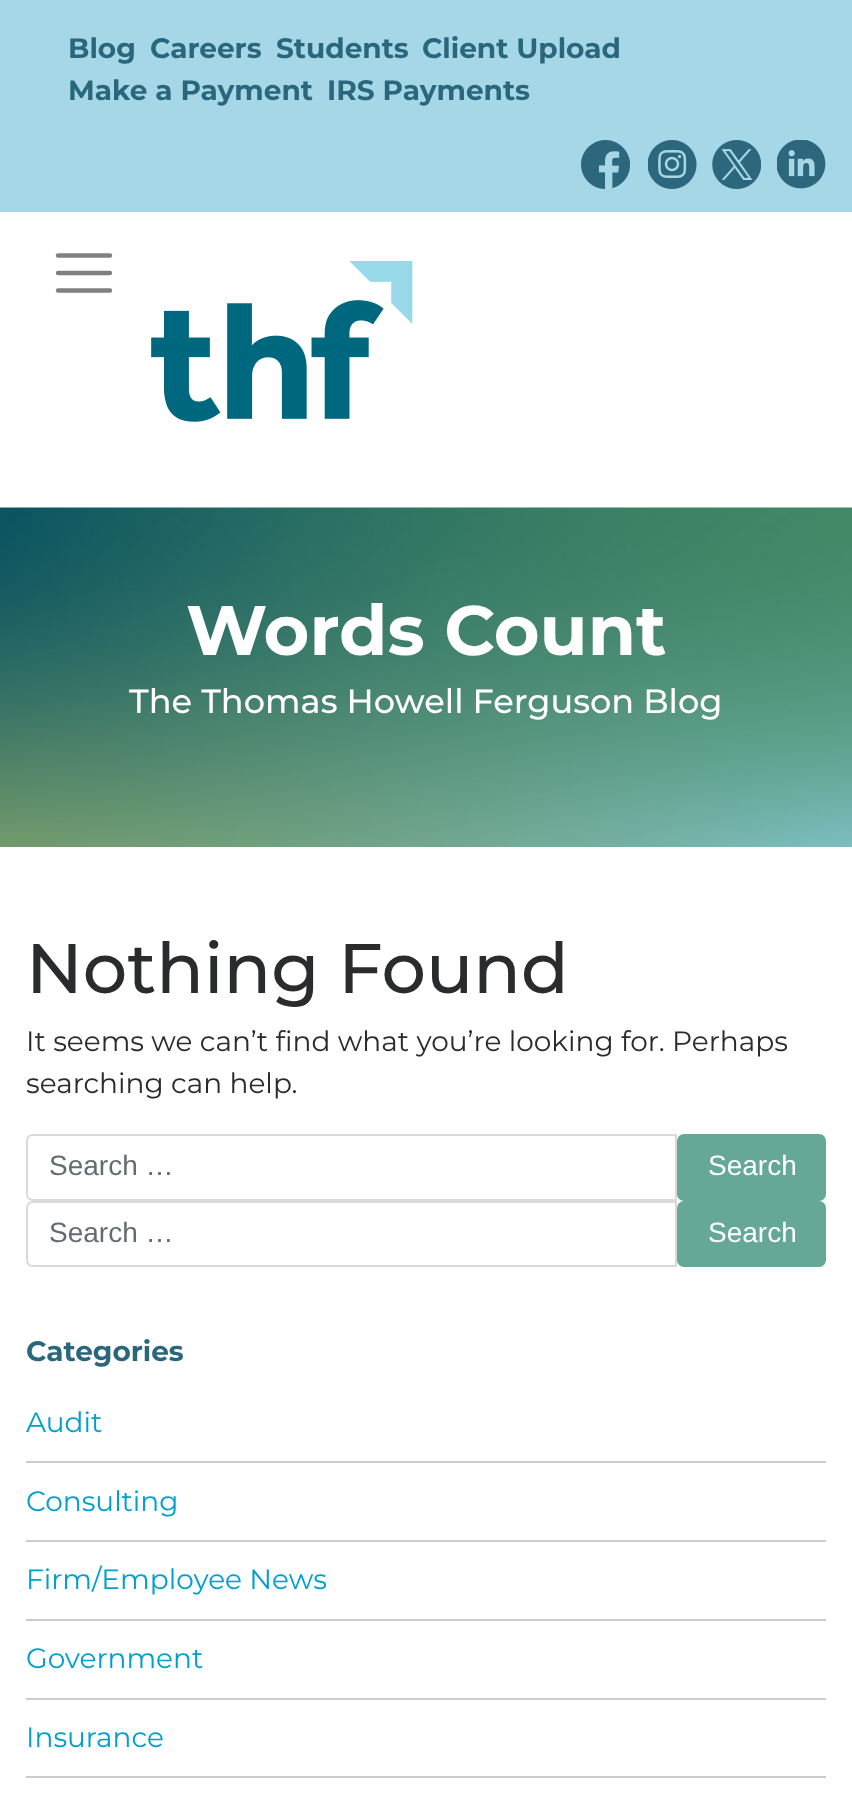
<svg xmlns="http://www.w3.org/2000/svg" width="852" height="1798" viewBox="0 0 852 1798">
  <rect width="100%" height="100%" fill="#ffffff"/>
  <rect x="0" y="0" width="852" height="212" fill="#a6d7e6"/>
  <text x="68" y="58" font-family="Montserrat" font-size="28" font-weight="bold" fill="#2b677c">Blog</text>
  <text x="150" y="58" font-family="Montserrat" font-size="28" font-weight="bold" fill="#2b677c">Careers</text>
  <text x="276" y="58" font-family="Montserrat" font-size="28" font-weight="bold" fill="#2b677c">Students</text>
  <text x="422" y="58" font-family="Montserrat" font-size="28" font-weight="bold" fill="#2b677c">Client Upload</text>
  <text x="68" y="100" font-family="Montserrat" font-size="28" font-weight="bold" fill="#2b677c">Make a Payment</text>
  <text x="327" y="100" font-family="Montserrat" font-size="28" font-weight="bold" fill="#2b677c">IRS Payments</text>
  <image x="581" y="140" width="49" height="49" href="img1.png"/>
  <image x="648" y="140" width="49" height="49" href="img2.png"/>
  <image x="712" y="140" width="49" height="49" href="img3.png"/>
  <image x="777" y="140" width="49" height="49" href="img4.png"/>
  <path d="M58 255.5H110M58 273H110M58 290.5H110" fill="none" stroke="#808080" stroke-width="4.4" stroke-linecap="round"/>
  <image x="151" y="261" width="262" height="161" href="img5.png"/>
  <image x="0" y="507" width="852" height="340" href="img6.png"/>
  <text x="186" y="655" font-family="Montserrat" font-size="70" font-weight="bold" fill="#ffffff">Words Count</text>
  <text x="129" y="713" font-family="Montserrat" font-size="33.6" font-weight="500" fill="#ffffff">The Thomas Howell Ferguson Blog</text>
  <text x="26" y="993" font-family="Montserrat" font-size="70" font-weight="500" fill="#292b2c">Nothing Found</text>
  <text x="26" y="1051" font-family="Montserrat" font-size="28" fill="#292b2c">It seems we can’t find what you’re looking for. Perhaps</text>
  <text x="26" y="1093" font-family="Montserrat" font-size="28" fill="#292b2c">searching can help.</text>
  <path d="M33 1135H676V1200H33C29.5 1200 27 1197.5 27 1194V1141C27 1137.5 29.5 1135 33 1135Z" fill="none" stroke="#d9d9d9" stroke-width="2"/>
  <text x="49" y="1175" font-family="Liberation Sans" font-size="28" fill="#636c72">Search …</text>
  <rect x="678" y="1135" width="147" height="65" rx="6" fill="#65a898" stroke="#65a898" stroke-width="2"/>
  <text x="708" y="1175" font-family="Liberation Sans" font-size="28" fill="#ffffff">Search</text>
  <path d="M33 1202H676V1266H33C29.5 1266 27 1263.5 27 1260V1208C27 1204.5 29.5 1202 33 1202Z" fill="none" stroke="#d9d9d9" stroke-width="2"/>
  <text x="49" y="1242" font-family="Liberation Sans" font-size="28" fill="#636c72">Search …</text>
  <rect x="678" y="1202" width="147" height="64" rx="6" fill="#65a898" stroke="#65a898" stroke-width="2"/>
  <text x="708" y="1242" font-family="Liberation Sans" font-size="28" fill="#ffffff">Search</text>
  <text x="26" y="1361" font-family="Montserrat" font-size="28" font-weight="bold" fill="#2b677c">Categories</text>
  <rect x="26" y="1461" width="800" height="2" fill="#cccccc"/>
  <text x="26" y="1432" font-family="Montserrat" font-size="28" fill="#00a0cc">Audit</text>
  <rect x="26" y="1540" width="800" height="2" fill="#cccccc"/>
  <text x="26" y="1511" font-family="Montserrat" font-size="28" fill="#00a0cc">Consulting</text>
  <rect x="26" y="1619" width="800" height="2" fill="#cccccc"/>
  <text x="26" y="1589" font-family="Montserrat" font-size="28" fill="#00a0cc">Firm/Employee News</text>
  <rect x="26" y="1698" width="800" height="2" fill="#cccccc"/>
  <text x="26" y="1668" font-family="Montserrat" font-size="28" fill="#00a0cc">Government</text>
  <rect x="26" y="1776" width="800" height="2" fill="#cccccc"/>
  <text x="26" y="1747" font-family="Montserrat" font-size="28" fill="#00a0cc">Insurance</text>
</svg>
